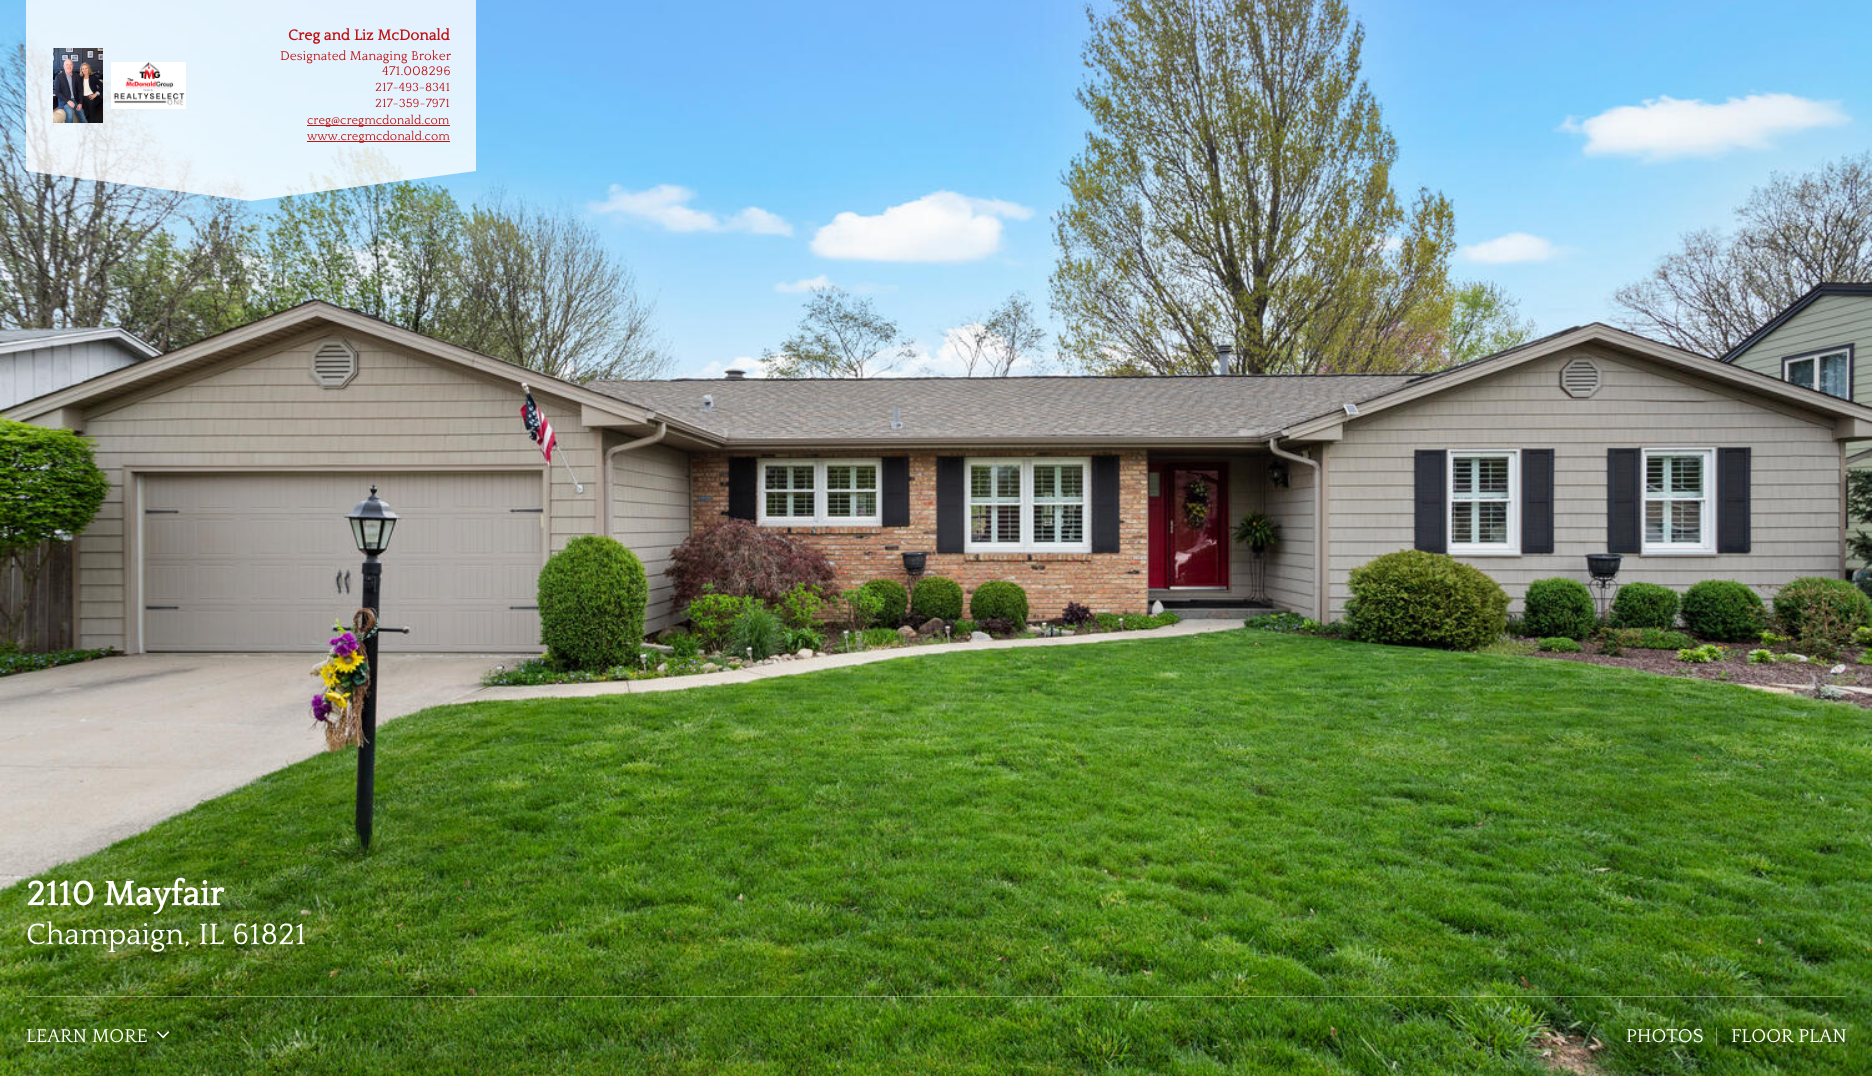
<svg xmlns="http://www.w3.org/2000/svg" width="1872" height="1076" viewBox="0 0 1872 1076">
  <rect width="100%" height="100%" fill="#ffffff"/>
  <image x="0" y="0" width="1872" height="1076" href="img1.png"/>
  <rect x="26" y="0" width="450" height="171" fill="#ffffff" fill-opacity="0.8"/>
  <image x="53" y="48" width="50" height="75" href="img2.png"/>
  <image x="111" y="62" width="75" height="47" href="img3.png"/>
  <text x="288" y="40" font-family="Quattrocento" font-size="15.4" font-weight="bold" fill="#c11313">Creg and Liz McDonald</text>
  <text x="280" y="60" font-family="Quattrocento" font-size="13.25" fill="#c11313">Designated Managing Broker</text>
  <text x="382" y="75" font-family="Quattrocento" font-size="13.25" fill="#c11313">471.008296</text>
  <text x="375" y="91" font-family="Quattrocento" font-size="12.5" fill="#c11313">217-493-8341</text>
  <text x="375" y="107" font-family="Quattrocento" font-size="12.5" fill="#c11313">217-359-7971</text>
  <rect x="307" y="125" width="143" height="1" fill="#c11313"/>
  <text x="307" y="124" font-family="Quattrocento" font-size="12.5" fill="#c11313">creg@cregmcdonald.com</text>
  <rect x="307" y="141" width="143" height="1" fill="#c11313"/>
  <text x="307" y="140" font-family="Quattrocento" font-size="12.5" fill="#c11313">www.cregmcdonald.com</text>
  <path d="M251 201L26 171H476Z" fill="#ffffff" fill-opacity="0.8"/>
  <text x="26" y="905" font-family="Quattrocento" font-size="35.25" font-weight="bold" fill="#ffffff">2110 Mayfair</text>
  <text x="26" y="944" font-family="Quattrocento" font-size="30.75" fill="#ffffff">Champaign, IL 61821</text>
  <rect x="26" y="996" width="1820" height="1" fill="#ffffff" fill-opacity="0.4"/>
  <text x="26" y="1042" font-family="Quattrocento" font-size="19.5" fill="#ffffff">LEARN MORE</text>
  <image x="157" y="1031" width="13" height="8" href="img4.png"/>
  <text x="137" y="1054" font-family="Quattrocento" font-size="18" fill="#416518">,</text>
  <rect x="1716" y="1027" width="1" height="19" fill="#ffffff" fill-opacity="0.4"/>
  <text x="1626" y="1042" font-family="Quattrocento" font-size="19.5" fill="#ffffff">PHOTOS</text>
  <text x="1731" y="1042" font-family="Quattrocento" font-size="19.5" fill="#ffffff">FLOOR PLAN</text>
</svg>
